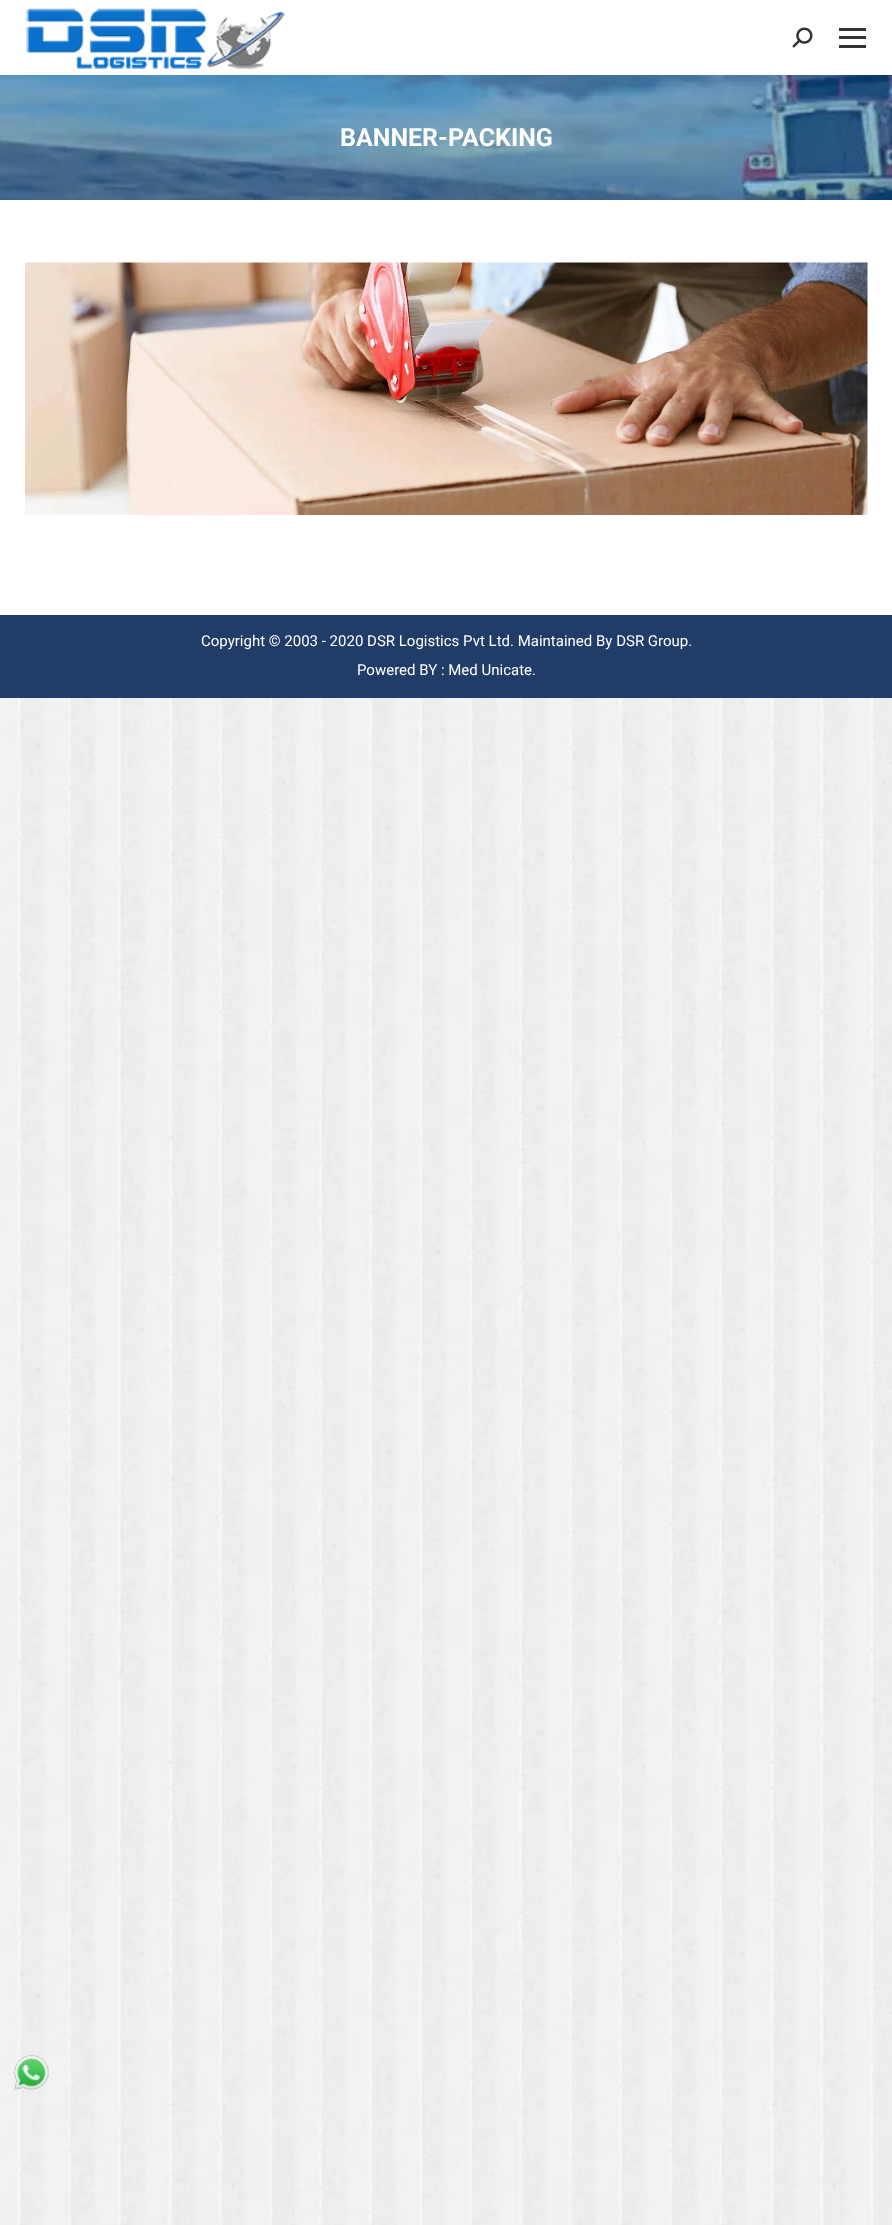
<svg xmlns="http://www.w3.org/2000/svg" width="892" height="2225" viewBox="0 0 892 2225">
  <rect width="100%" height="100%" fill="#ffffff"/>
  <image x="0" y="698" width="892" height="1527" href="img1.png"/>
  <image x="26" y="8" width="260" height="61" href="img2.png"/>
  <image x="792" y="27" width="21" height="21" href="img3.png"/>
  <rect x="839" y="28" width="27" height="3" fill="#333333"/>
  <rect x="839" y="36" width="27" height="3" fill="#333333"/>
  <rect x="839" y="45" width="27" height="3" fill="#333333"/>
  <image x="0" y="75" width="892" height="125" href="img4.png"/>
  <text x="340" y="146" font-family="Roboto" font-size="25" font-weight="bold" fill="#ffffff">BANNER-PACKING</text>
  <image x="25" y="262" width="843" height="253" href="img5.png"/>
  <rect x="0" y="615" width="892" height="83" fill="#203c67"/>
  <text x="201" y="646" font-family="Roboto" font-size="15" fill="#ffffff">Copyright © 2003 - 2020 DSR Logistics Pvt Ltd. Maintained By DSR Group.</text>
  <text x="357" y="675" font-family="Roboto" font-size="15" fill="#ffffff">Powered BY : Med Unicate.</text>
  <image x="13" y="2055" width="36" height="36" href="img6.png"/>
</svg>
